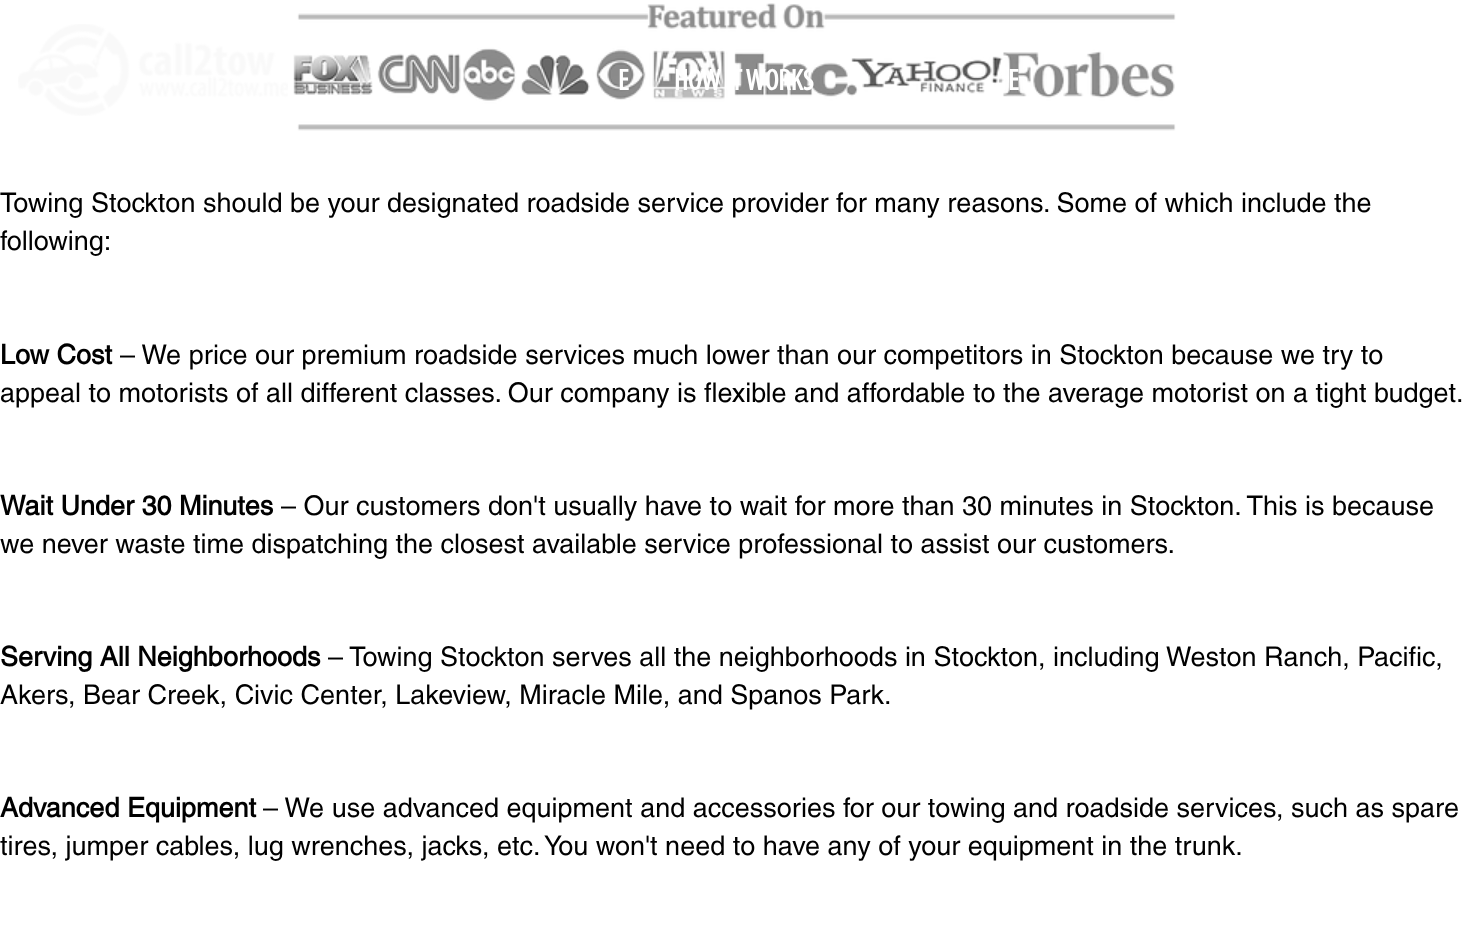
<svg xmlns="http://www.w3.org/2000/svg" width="1467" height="927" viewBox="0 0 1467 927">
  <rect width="100%" height="100%" fill="#ffffff"/>
  <image x="18" y="24" width="270" height="92" href="img1.png"/>
  <image x="293" y="3" width="883" height="128" href="img2.png"/>
  <text x="618" y="90" font-family="Myriad" font-size="30" font-weight="bold" fill="#ffffff">E</text>
  <text x="674" y="90" font-family="Myriad" font-size="30" font-weight="bold" fill="#ffffff">HOW IT WORKS</text>
  <text x="1008" y="90" font-family="Myriad" font-size="30" font-weight="bold" fill="#ffffff">E</text>
  <text x="0" y="212" font-family="helvetica" font-size="27" fill="#000000">Towing Stockton should be your designated roadside service provider for many reasons. Some of which include the</text>
  <text x="0" y="250" font-family="helvetica" font-size="27" fill="#000000">following:</text>
  <text x="0" y="364" font-family="helvetica" font-size="27" font-weight="bold" fill="#000000">Low Cost</text>
  <text x="120" y="364" font-family="helvetica" font-size="27" fill="#000000">– We price our premium roadside services much lower than our competitors in Stockton because we try to</text>
  <text x="0" y="402" font-family="helvetica" font-size="27" fill="#000000">appeal to motorists of all different classes. Our company is flexible and affordable to the average motorist on a tight budget.</text>
  <text x="0" y="515" font-family="helvetica" font-size="27" font-weight="bold" fill="#000000">Wait Under 30 Minutes</text>
  <text x="281" y="515" font-family="helvetica" font-size="27" fill="#000000">– Our customers don't usually have to wait for more than 30 minutes in Stockton. This is because</text>
  <text x="0" y="553" font-family="helvetica" font-size="27" fill="#000000">we never waste time dispatching the closest available service professional to assist our customers.</text>
  <text x="0" y="666" font-family="helvetica" font-size="27" font-weight="bold" fill="#000000">Serving All Neighborhoods</text>
  <text x="328" y="666" font-family="helvetica" font-size="27" fill="#000000">– Towing Stockton serves all the neighborhoods in Stockton, including Weston Ranch, Pacific,</text>
  <text x="0" y="704" font-family="helvetica" font-size="27" fill="#000000">Akers, Bear Creek, Civic Center, Lakeview, Miracle Mile, and Spanos Park.</text>
  <text x="0" y="817" font-family="helvetica" font-size="27" font-weight="bold" fill="#000000">Advanced Equipment</text>
  <text x="263" y="817" font-family="helvetica" font-size="27" fill="#000000">– We use advanced equipment and accessories for our towing and roadside services, such as spare</text>
  <text x="0" y="855" font-family="helvetica" font-size="27" fill="#000000">tires, jumper cables, lug wrenches, jacks, etc. You won't need to have any of your equipment in the trunk.</text>
</svg>
